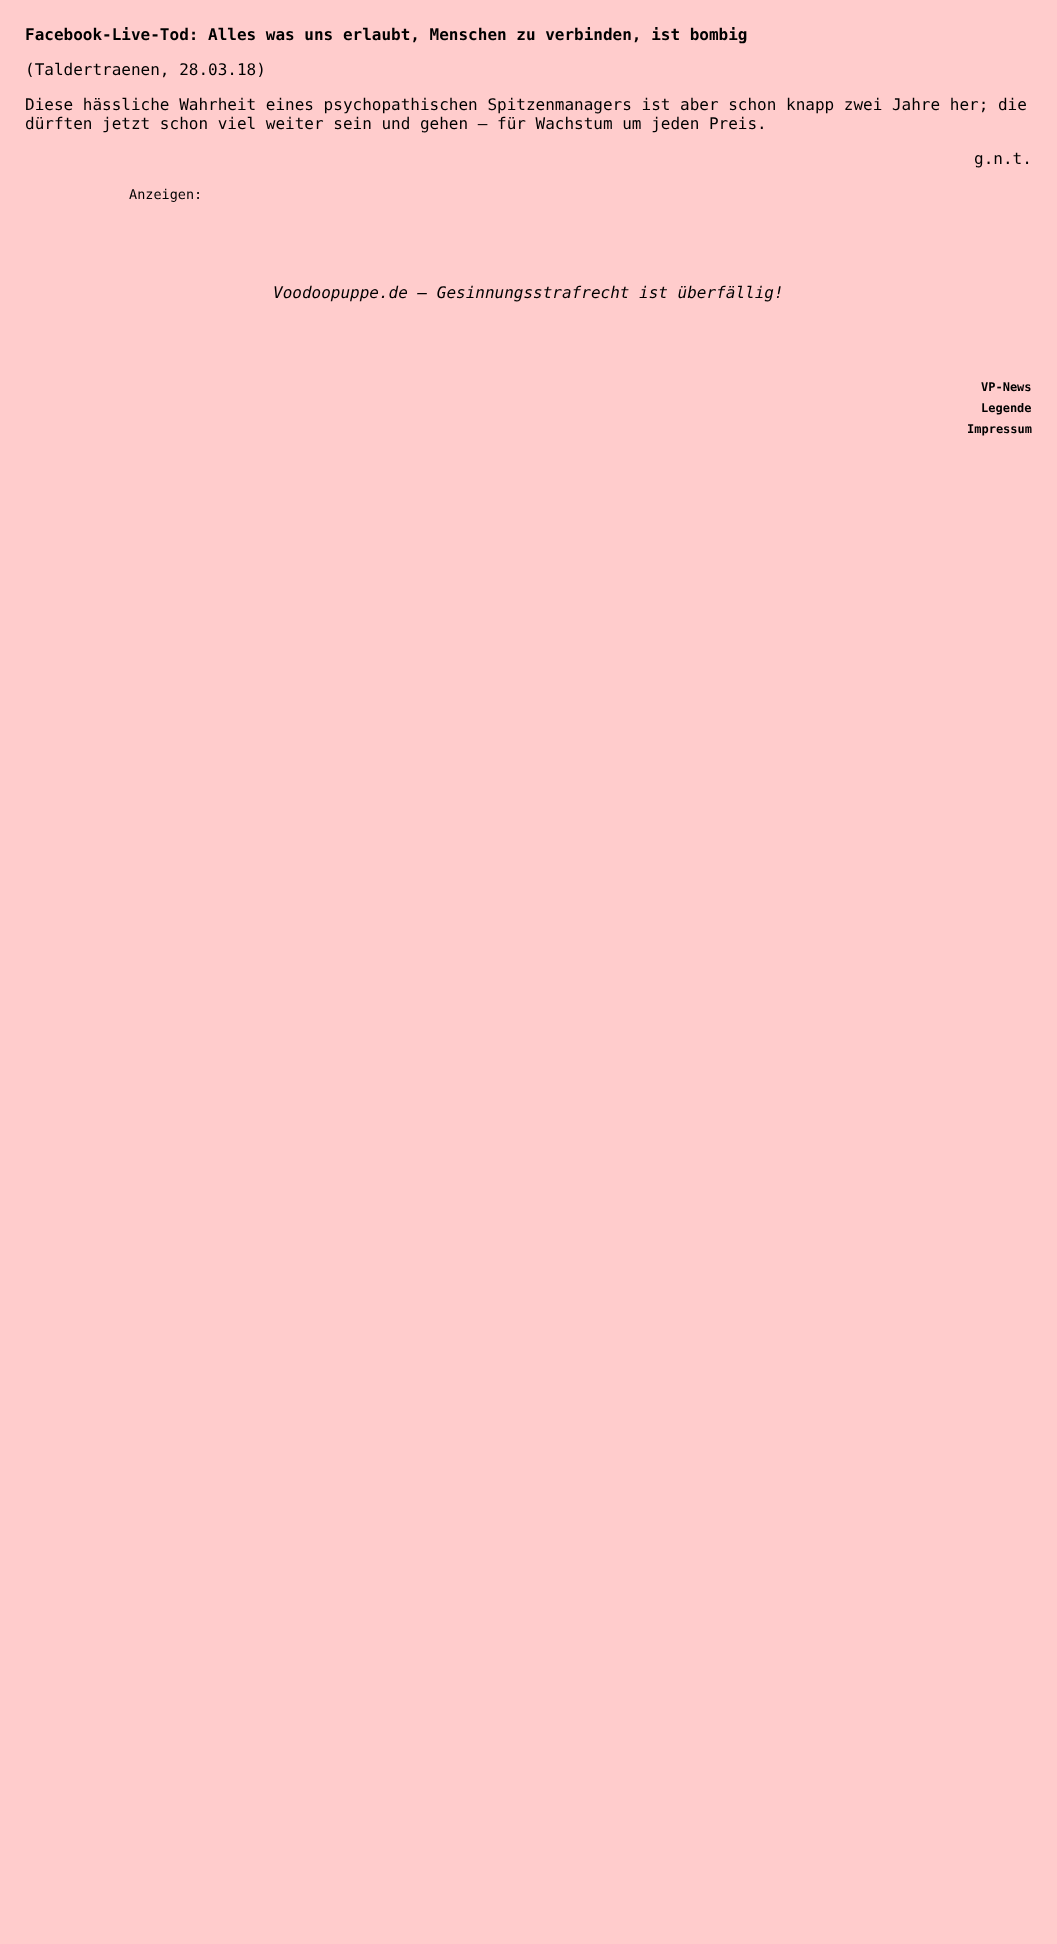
<svg xmlns="http://www.w3.org/2000/svg" width="1057" height="1944" viewBox="0 0 1057 1944">
  <rect width="100%" height="100%" fill="#ffcccc"/>
  <text x="25" y="40" font-family="DejaVu Sans Mono" font-size="16" font-weight="bold" fill="#000000">Facebook-Live-Tod: Alles was uns erlaubt, Menschen zu verbinden, ist bombig</text>
  <text x="25" y="75" font-family="DejaVu Sans Mono" font-size="16" fill="#000000">(Taldertraenen, 28.03.18)</text>
  <text x="25" y="110" font-family="DejaVu Sans Mono" font-size="16" fill="#000000">Diese hässliche Wahrheit eines psychopathischen Spitzenmanagers ist aber schon knapp zwei Jahre her; die</text>
  <text x="25" y="129" font-family="DejaVu Sans Mono" font-size="16" fill="#000000">dürften jetzt schon viel weiter sein und gehen – für Wachstum um jeden Preis.</text>
  <text x="974" y="164" font-family="DejaVu Sans Mono" font-size="16" fill="#000000">g.n.t.</text>
  <text x="129" y="199" font-family="DejaVu Sans Mono" font-size="13.5" fill="#000000">Anzeigen:</text>
  <text x="273" y="298" font-family="DejaVu Sans Mono" font-size="16" font-style="italic" fill="#000000">Voodoopuppe.de – Gesinnungsstrafrecht ist überfällig!</text>
  <text x="981" y="391" font-family="DejaVu Sans Mono" font-size="12" font-weight="bold" fill="#000000">VP-News</text>
  <text x="981" y="412" font-family="DejaVu Sans Mono" font-size="12" font-weight="bold" fill="#000000">Legende</text>
  <text x="967" y="433" font-family="DejaVu Sans Mono" font-size="12" font-weight="bold" fill="#000000">Impressum</text>
</svg>
